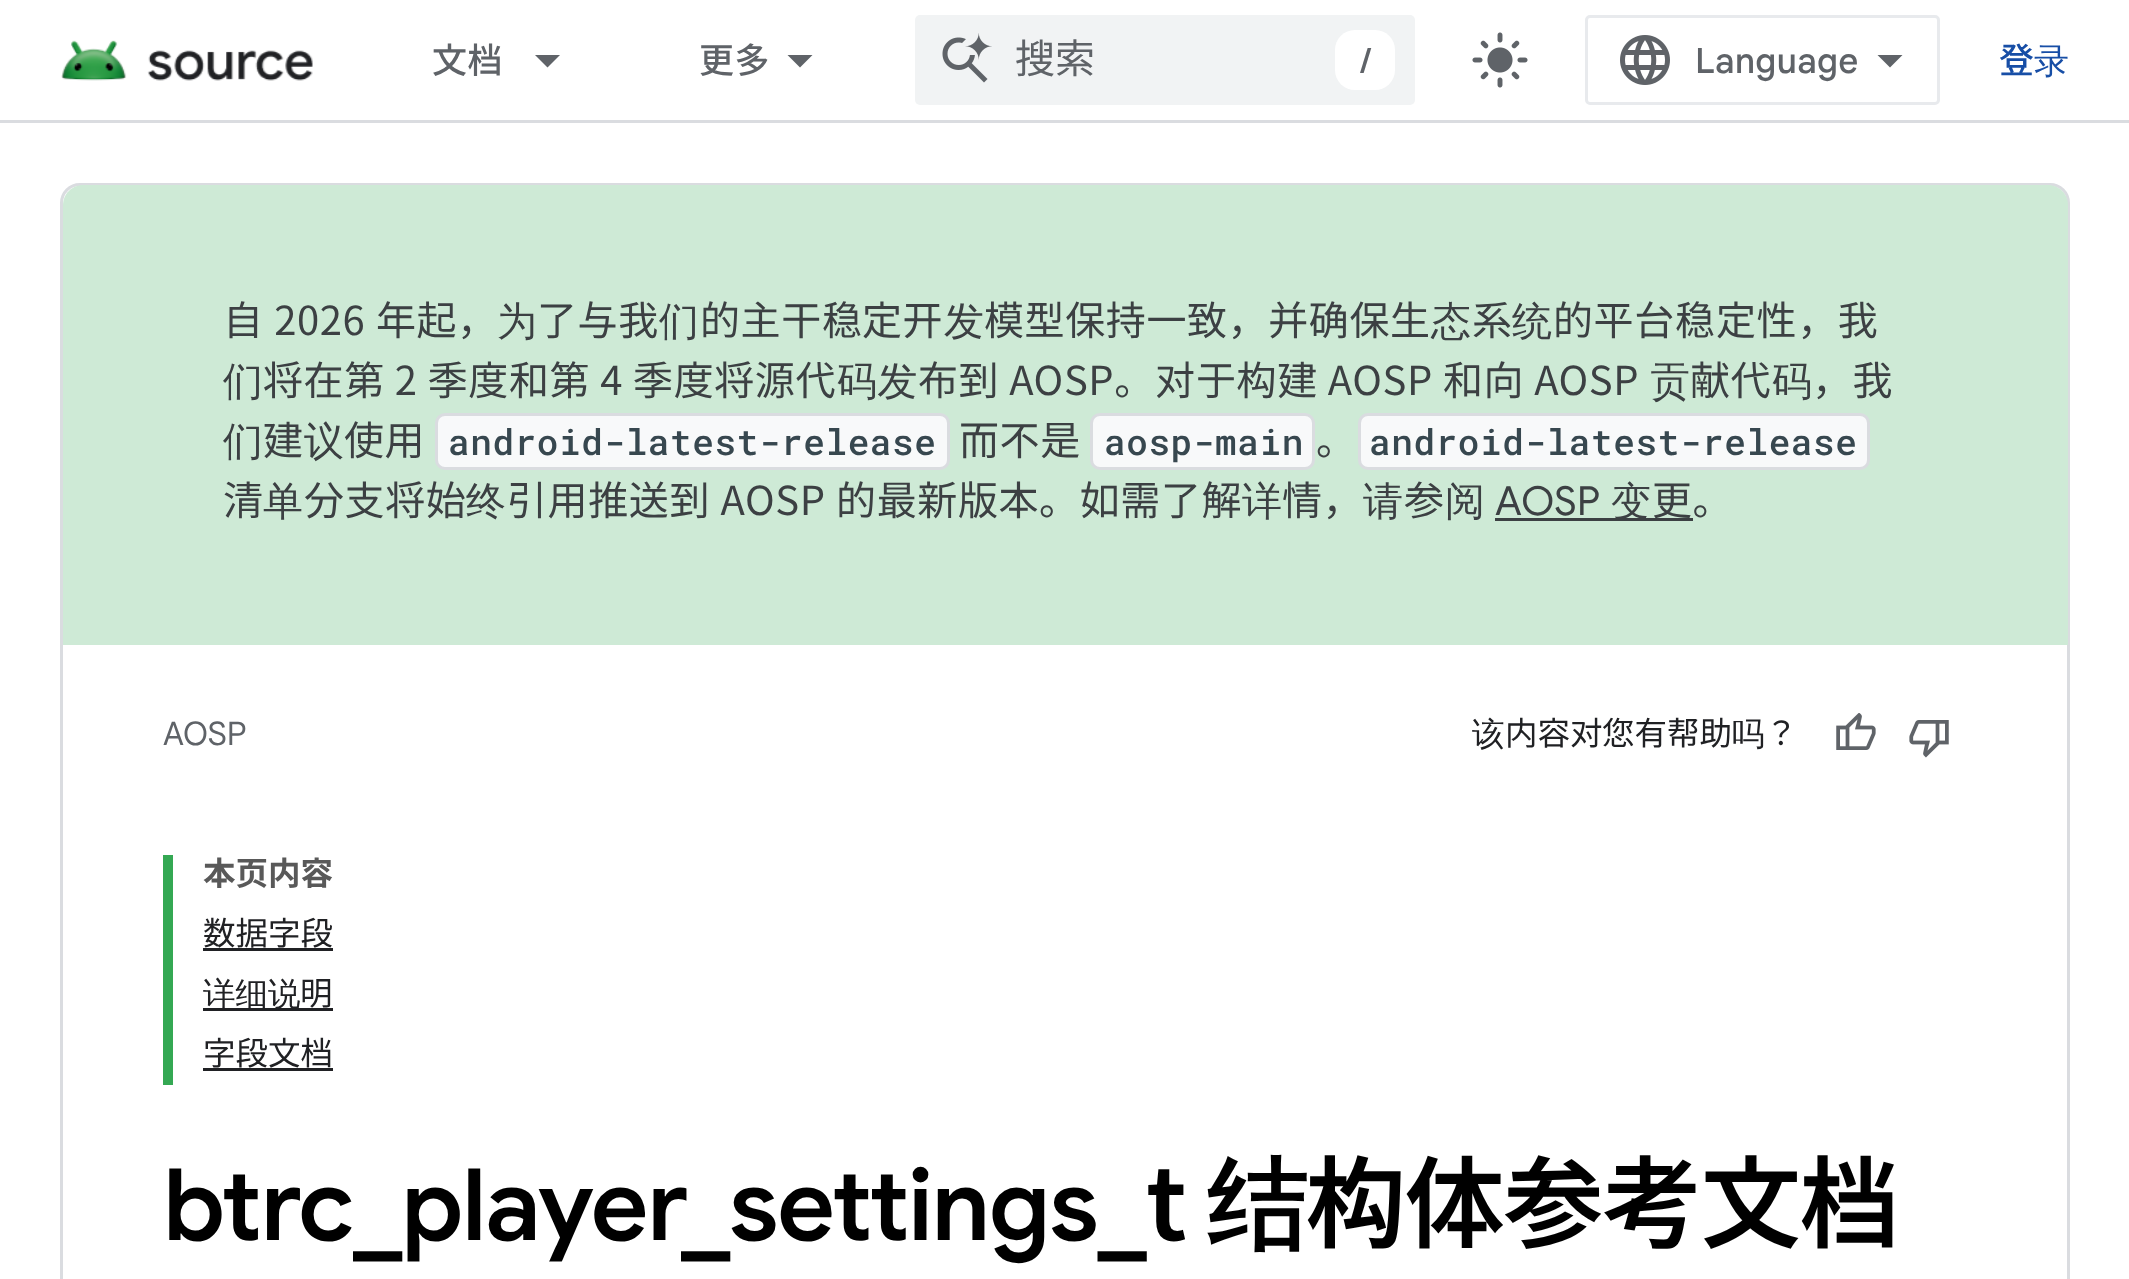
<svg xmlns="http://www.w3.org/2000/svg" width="2129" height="1279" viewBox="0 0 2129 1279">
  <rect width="100%" height="100%" fill="#ffffff"/>
  <rect x="0" y="120" width="2129" height="3" fill="#dadce0"/>
  <image x="61" y="40" width="252" height="41" href="img1.png"/>
  <text x="432" y="73" font-family="Noto Sans JP" font-size="35" font-weight="500" letter-spacing="0.6" fill="#5f6368">文档</text>
  <path d="M535 55H560L547.5 67.5Z" fill="#5f6368"/>
  <text x="699" y="73" font-family="Noto Sans JP" font-size="35" font-weight="500" letter-spacing="0.6" fill="#5f6368">更多</text>
  <path d="M787.5 55H812.5L800 67.5Z" fill="#5f6368"/>
  <rect x="915" y="15" width="500" height="90" rx="5" fill="#f1f3f4"/>
  <image x="942" y="33" width="50" height="50" href="img2.png"/>
  <text x="1015" y="73" font-family="Noto Sans JP" font-size="40" fill="#5f6368">搜索</text>
  <rect x="1335" y="30" width="60" height="60" rx="20" fill="#ffffff"/>
  <text x="1360" y="73" font-family="Google Sans" font-size="35" font-weight="500" fill="#5f6368">/</text>
  <image x="1472" y="32" width="56" height="56" href="img3.png"/>
  <rect x="1586.5" y="16.5" width="352" height="87" rx="3.5" fill="none" stroke="#e8eaed" stroke-width="3"/>
  <image x="1620" y="35" width="50" height="50" href="img4.png"/>
  <text x="1695" y="73" font-family="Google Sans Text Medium" font-size="35" font-weight="500" fill="#5f6368">Language</text>
  <path d="M1890 67.5L1877.5 55H1902.5Z" fill="#5f6368"/>
  <text x="1999" y="73" font-family="Noto Sans JP" font-size="35" font-weight="500" letter-spacing="0.6" fill="#174ea6">登</text>
  <text x="2034" y="73" font-family="WenQuanYi Zen Hei" font-size="35" font-weight="500" letter-spacing="0.6" fill="#174ea6">录</text>
  <rect x="61.5" y="184.5" width="2007" height="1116" rx="18.5" fill="none" stroke="#dadce0" stroke-width="3"/>
  <path d="M83 185H2048C2059 185 2068 194 2068 205V645H63V205C63 194 72 185 83 185Z" fill="#ceead6"/>
  <text x="223" y="335" word-spacing="1" font-family="Noto Sans JP" font-size="40" letter-spacing="0.6" fill="#3c4043">自 2026 年起，</text>
  <text x="497" y="335" font-family="WenQuanYi Zen Hei" font-size="40" font-weight="500" letter-spacing="0.6" fill="#3c4043">为</text>
  <text x="537" y="335" font-family="Noto Sans JP" font-size="40" letter-spacing="0.6" fill="#3c4043">了与我</text>
  <text x="659" y="335" font-family="WenQuanYi Zen Hei" font-size="40" font-weight="500" letter-spacing="0.6" fill="#3c4043">们</text>
  <text x="700" y="335" font-family="Noto Sans JP" font-size="40" letter-spacing="0.6" fill="#3c4043">的主干</text>
  <text x="822" y="335" font-family="Noto Sans KR" font-size="40" letter-spacing="0.6" fill="#3c4043">稳</text>
  <text x="862" y="335" font-family="Noto Sans JP" font-size="40" letter-spacing="0.6" fill="#3c4043">定开</text>
  <text x="944" y="335" font-family="WenQuanYi Zen Hei" font-size="40" font-weight="500" letter-spacing="0.6" fill="#3c4043">发</text>
  <text x="984" y="335" font-family="Noto Sans JP" font-size="40" letter-spacing="0.6" fill="#3c4043">模型保持一致，并确保生</text>
  <text x="1431" y="335" font-family="WenQuanYi Zen Hei" font-size="40" font-weight="500" letter-spacing="0.6" fill="#3c4043">态</text>
  <text x="1472" y="335" font-family="Noto Sans JP" font-size="40" letter-spacing="0.6" fill="#3c4043">系</text>
  <text x="1512" y="335" font-family="WenQuanYi Zen Hei" font-size="40" font-weight="500" letter-spacing="0.6" fill="#3c4043">统</text>
  <text x="1553" y="335" font-family="Noto Sans JP" font-size="40" letter-spacing="0.6" fill="#3c4043">的平台</text>
  <text x="1675" y="335" font-family="Noto Sans KR" font-size="40" letter-spacing="0.6" fill="#3c4043">稳</text>
  <text x="1716" y="335" font-family="Noto Sans JP" font-size="40" letter-spacing="0.6" fill="#3c4043">定性，我</text>
  <text x="223" y="395" font-family="WenQuanYi Zen Hei" font-size="40" font-weight="500" letter-spacing="0.6" fill="#3c4043">们</text>
  <text x="263" y="395" word-spacing="0.5" font-family="Noto Sans JP" font-size="40" letter-spacing="0.6" fill="#3c4043">将在第 2 季度和第 4 季度将源代</text>
  <text x="837" y="395" font-family="WenQuanYi Zen Hei" font-size="40" font-weight="500" letter-spacing="0.6" fill="#3c4043">码发</text>
  <text x="918" y="395" word-spacing="0.5" font-family="Noto Sans JP" font-size="40" letter-spacing="0.6" fill="#3c4043">布到 AOSP。</text>
  <text x="1155" y="395" font-family="Noto Sans KR" font-size="40" letter-spacing="0.6" fill="#3c4043">对</text>
  <text x="1196" y="395" word-spacing="0.5" font-family="Noto Sans JP" font-size="40" letter-spacing="0.6" fill="#3c4043">于构建 AOSP 和向 AOSP</text>
  <text x="1650" y="395" font-family="WenQuanYi Zen Hei" font-size="40" font-weight="500" letter-spacing="0.6" fill="#3c4043">贡</text>
  <text x="1690" y="395" font-family="Noto Sans JP" font-size="40" letter-spacing="0.6" fill="#3c4043">献代</text>
  <text x="1772" y="395" font-family="WenQuanYi Zen Hei" font-size="40" font-weight="500" letter-spacing="0.6" fill="#3c4043">码</text>
  <text x="1812" y="395" font-family="Noto Sans JP" font-size="40" letter-spacing="0.6" fill="#3c4043">，我</text>
  <text x="223" y="455" font-family="WenQuanYi Zen Hei" font-size="40" font-weight="500" letter-spacing="0.6" fill="#3c4043">们</text>
  <text x="263" y="455" font-family="Noto Sans JP" font-size="40" letter-spacing="0.6" fill="#3c4043">建</text>
  <text x="304" y="455" font-family="WenQuanYi Zen Hei" font-size="40" font-weight="500" letter-spacing="0.6" fill="#3c4043">议</text>
  <text x="344" y="455" font-family="Noto Sans JP" font-size="40" letter-spacing="0.6" fill="#3c4043">使用</text>
  <rect x="436.5" y="414.5" width="512" height="54" rx="8.5" fill="#f8f9fa" stroke="#dadce0" stroke-width="3"/>
  <text x="448" y="455" font-family="Roboto Mono" font-size="36" font-weight="500" letter-spacing="0.6" fill="#37474f">android-latest-release</text>
  <text x="959" y="455" font-family="Noto Sans JP" font-size="40" letter-spacing="0.6" fill="#3c4043">而不是</text>
  <rect x="1091.5" y="414.5" width="222" height="54" rx="8.5" fill="#f8f9fa" stroke="#dadce0" stroke-width="3"/>
  <text x="1104" y="455" font-family="Roboto Mono" font-size="36" font-weight="500" letter-spacing="0.6" fill="#37474f">aosp-main</text>
  <text x="1316" y="455" font-family="Noto Sans JP" font-size="40" letter-spacing="0.6" fill="#3c4043">。</text>
  <rect x="1359.5" y="414.5" width="509" height="54" rx="8.5" fill="#f8f9fa" stroke="#dadce0" stroke-width="3"/>
  <text x="1369" y="455" font-family="Roboto Mono" font-size="36" font-weight="500" letter-spacing="0.6" fill="#37474f">android-latest-release</text>
  <text x="223" y="515" font-family="Noto Sans JP" font-size="40" letter-spacing="0.6" fill="#3c4043">清</text>
  <text x="263" y="515" font-family="WenQuanYi Zen Hei" font-size="40" font-weight="500" letter-spacing="0.6" fill="#3c4043">单</text>
  <text x="304" y="515" font-family="Noto Sans JP" font-size="40" letter-spacing="0.6" fill="#3c4043">分支将始</text>
  <text x="466" y="515" font-family="WenQuanYi Zen Hei" font-size="40" font-weight="500" letter-spacing="0.6" fill="#3c4043">终</text>
  <text x="507" y="515" word-spacing="1" font-family="Noto Sans JP" font-size="40" letter-spacing="0.6" fill="#3c4043">引用推送到 AOSP 的最新版本。如需了解</text>
  <text x="1242" y="515" font-family="WenQuanYi Zen Hei" font-size="40" font-weight="500" letter-spacing="0.6" fill="#3c4043">详</text>
  <text x="1282" y="515" font-family="Noto Sans JP" font-size="40" letter-spacing="0.6" fill="#3c4043">情，</text>
  <text x="1363" y="515" font-family="WenQuanYi Zen Hei" font-size="40" font-weight="500" letter-spacing="0.6" fill="#3c4043">请</text>
  <text x="1404" y="515" font-family="Noto Sans JP" font-size="40" letter-spacing="0.6" fill="#3c4043">参</text>
  <text x="1445" y="515" font-family="WenQuanYi Zen Hei" font-size="40" font-weight="500" letter-spacing="0.6" fill="#3c4043">阅</text>
  <text x="1495" y="515" font-family="Google Sans" font-size="40" letter-spacing="0.6" fill="#3c4043">AOSP</text>
  <rect x="1495" y="518" width="198" height="3" fill="#3c4043"/>
  <text x="1611" y="515" font-family="WenQuanYi Zen Hei" font-size="40" font-weight="500" letter-spacing="0.6" fill="#3c4043">变</text>
  <text x="1652" y="515" font-family="Noto Sans JP" font-size="40" letter-spacing="0.6" fill="#3c4043">更。</text>
  <text x="163" y="745" font-family="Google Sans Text" font-size="32.5" fill="#5f6368">AOSP</text>
  <text x="1472" y="745" font-family="WenQuanYi Zen Hei" font-size="32.5" font-weight="500" fill="#202124">该</text>
  <text x="1505" y="745" font-family="Noto Sans JP" font-size="32.5" fill="#202124">内容</text>
  <text x="1570" y="745" font-family="Noto Sans KR" font-size="32.5" fill="#202124">对</text>
  <text x="1602" y="745" font-family="Noto Sans JP" font-size="32.5" fill="#202124">您有帮助</text>
  <text x="1732" y="745" font-family="WenQuanYi Zen Hei" font-size="32.5" font-weight="500" fill="#202124">吗</text>
  <text x="1765" y="745" font-family="Noto Sans JP" font-size="32.5" fill="#202124">？</text>
  <image x="1836" y="713" width="40" height="37" href="img5.png"/>
  <image x="1909" y="720" width="40" height="38" href="img6.png"/>
  <rect x="163" y="855" width="10" height="230" fill="#34a853"/>
  <text x="203" y="885" font-family="Noto Sans JP" font-size="32.5" font-weight="bold" fill="#595959">本页内容</text>
  <text x="203" y="945" font-family="Noto Sans JP" font-size="32.5" fill="#202124">数据字段</text>
  <rect x="203" y="948" width="130" height="3" fill="#202124"/>
  <rect x="203" y="1008" width="130" height="3" fill="#202124"/>
  <text x="203" y="1005" font-family="WenQuanYi Zen Hei" font-size="32.5" font-weight="500" fill="#202124">详细说</text>
  <text x="300" y="1005" font-family="Noto Sans JP" font-size="32.5" fill="#202124">明</text>
  <text x="203" y="1065" font-family="Noto Sans JP" font-size="32.5" fill="#202124">字段文档</text>
  <rect x="203" y="1068" width="130" height="3" fill="#202124"/>
  <text x="163" y="1240" font-family="Google Sans" font-size="100" font-weight="600" letter-spacing="-1.25" fill="#000000">btrc_player</text>
  <text x="681" y="1240" font-family="Google Sans" font-size="100" font-weight="600" letter-spacing="-1.25" fill="#000000">_settings_</text>
  <text x="1146" y="1240" font-family="Noto Sans JP" font-size="100" font-weight="600" letter-spacing="-1.25" fill="#000000">t</text>
  <text x="1207" y="1240" font-family="WenQuanYi Zen Hei" font-size="100" font-weight="bold" letter-spacing="-1.25" fill="#000000">结</text>
  <text x="1306" y="1240" font-family="Noto Sans JP" font-size="100" font-weight="600" letter-spacing="-1.25" fill="#000000">构体参考文档</text>
</svg>
